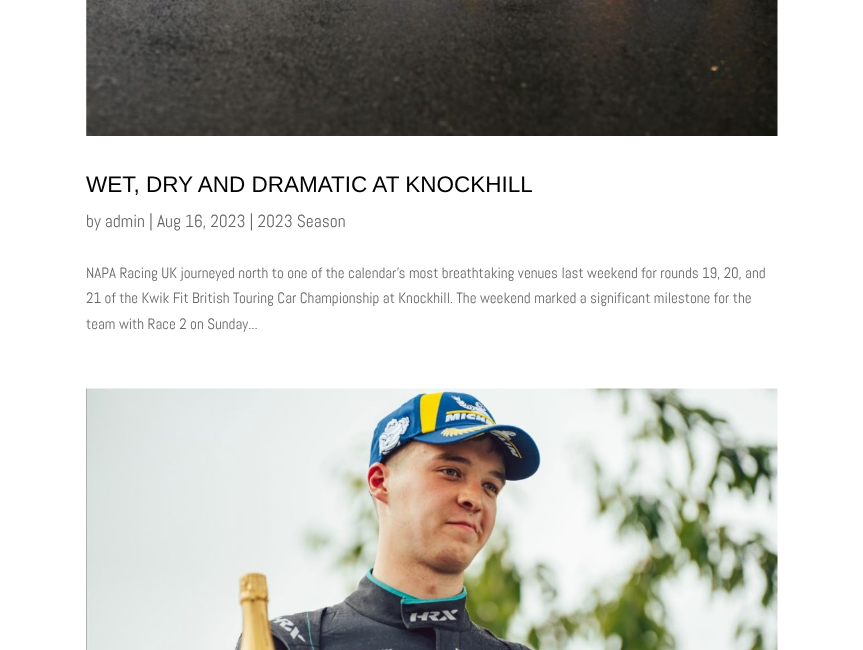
<svg xmlns="http://www.w3.org/2000/svg" width="863" height="650" viewBox="0 0 863 650">
  <rect width="100%" height="100%" fill="#ffffff"/>
  <image x="86" y="0" width="692" height="136" href="img1.png"/>
  <text x="86" y="192" font-family="Liberation Sans" font-size="22.5" fill="#000000">WET, DRY AND DRAMATIC AT KNOCKHILL</text>
  <text x="86" y="227" font-family="Abel" font-size="17.5" fill="#666666">by admin | Aug 16, 2023 | 2023 Season</text>
  <text x="86" y="278" font-family="Abel" font-size="15" fill="#666666">NAPA Racing UK journeyed north to one of the calendar’s most breathtaking venues last weekend for rounds 19, 20, and</text>
  <text x="86" y="303" font-family="Abel" font-size="15" fill="#666666">21 of the Kwik Fit British Touring Car Championship at Knockhill. The weekend marked a significant milestone for the</text>
  <text x="86" y="329" font-family="Abel" font-size="15" fill="#666666">team with Race 2 on Sunday...</text>
  <image x="86" y="388" width="692" height="262" href="img2.png"/>
</svg>
